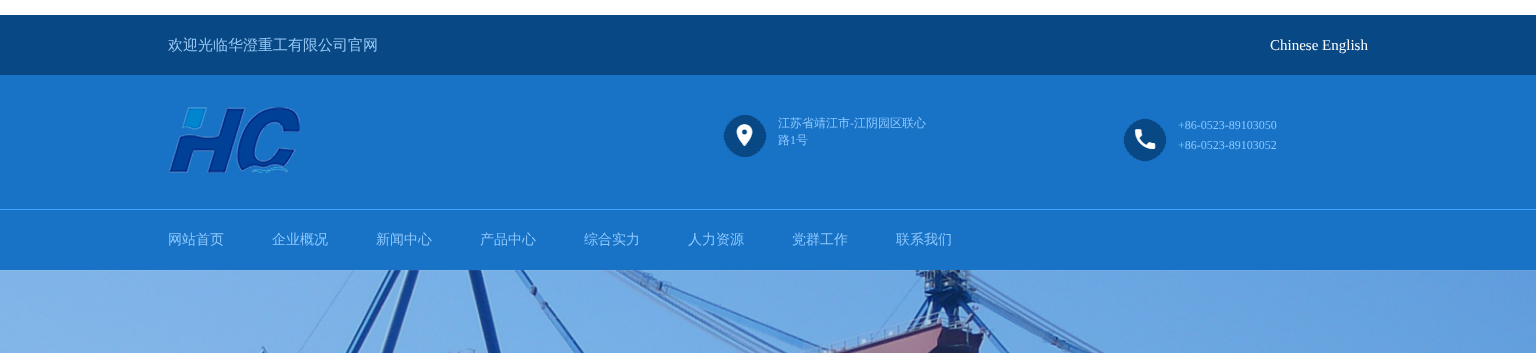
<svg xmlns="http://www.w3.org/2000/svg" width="1536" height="353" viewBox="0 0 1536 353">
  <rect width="100%" height="100%" fill="#ffffff"/>
  <rect x="0" y="15" width="1536" height="60" fill="#084884"/>
  <text x="168" y="50" font-family="WenQuanYi Zen Hei" font-size="15" font-weight="500" fill="#97c8f5">欢迎光临华澄重工有限公司官网</text>
  <text x="1270" y="50" font-family="Liberation Serif" font-size="15" fill="#ffffff">Chinese English</text>
  <rect x="0" y="75" width="1536" height="134" fill="#1872c5"/>
  <image x="169" y="107" width="131" height="66" href="img1.png"/>
  <image x="723" y="115" width="44" height="42" href="img2.png"/>
  <text x="778" y="127" font-family="WenQuanYi Zen Hei" font-size="12" font-weight="500" fill="#8dc8ff">江苏省靖江市</text>
  <text x="850" y="127" font-family="Liberation Serif" font-size="12" fill="#8dc8ff">-</text>
  <text x="854" y="127" font-family="WenQuanYi Zen Hei" font-size="12" font-weight="500" fill="#8dc8ff">江阴园区联心</text>
  <text x="778" y="144" font-family="WenQuanYi Zen Hei" font-size="12" font-weight="500" fill="#8dc8ff">路</text>
  <text x="790" y="144" font-family="Liberation Serif" font-size="12" fill="#8dc8ff">1</text>
  <text x="796" y="144" font-family="WenQuanYi Zen Hei" font-size="12" font-weight="500" fill="#8dc8ff">号</text>
  <image x="1123" y="118" width="44" height="44" href="img3.png"/>
  <text x="1178" y="129" font-family="Liberation Serif" font-size="12" fill="#8dc8ff">+86-0523-89103050</text>
  <text x="1178" y="149" font-family="Liberation Serif" font-size="12" fill="#8dc8ff">+86-0523-89103052</text>
  <rect x="0" y="210" width="1536" height="60" fill="#1872c5"/>
  <rect x="0" y="209" width="1536" height="1" fill="#42a4ff"/>
  <text x="168" y="244" font-family="WenQuanYi Zen Hei" font-size="14" font-weight="500" fill="#8dc8ff">网站首页</text>
  <text x="272" y="244" font-family="WenQuanYi Zen Hei" font-size="14" font-weight="500" fill="#8dc8ff">企业概况</text>
  <text x="376" y="244" font-family="WenQuanYi Zen Hei" font-size="14" font-weight="500" fill="#8dc8ff">新闻中心</text>
  <text x="480" y="244" font-family="WenQuanYi Zen Hei" font-size="14" font-weight="500" fill="#8dc8ff">产品中心</text>
  <text x="584" y="244" font-family="WenQuanYi Zen Hei" font-size="14" font-weight="500" fill="#8dc8ff">综合实力</text>
  <text x="688" y="244" font-family="WenQuanYi Zen Hei" font-size="14" font-weight="500" fill="#8dc8ff">人力资源</text>
  <text x="792" y="244" font-family="WenQuanYi Zen Hei" font-size="14" font-weight="500" fill="#8dc8ff">党群工作</text>
  <text x="896" y="244" font-family="WenQuanYi Zen Hei" font-size="14" font-weight="500" fill="#8dc8ff">联系我们</text>
  <image x="0" y="270" width="1536" height="83" href="img4.png"/>
</svg>
